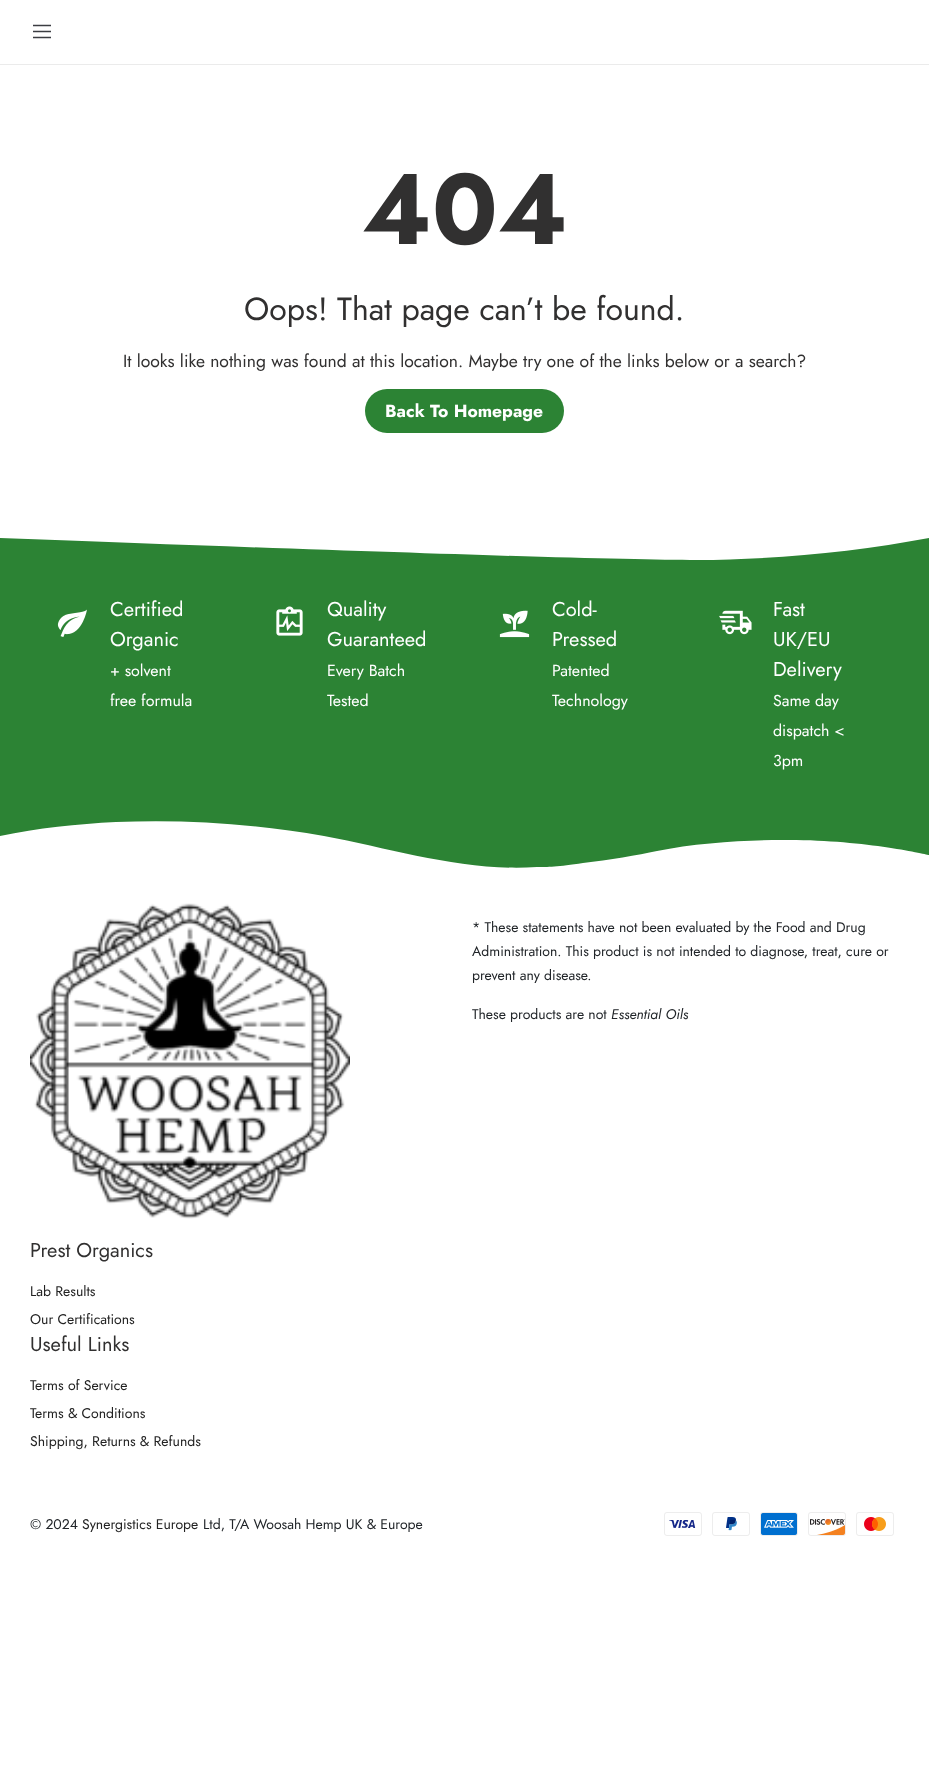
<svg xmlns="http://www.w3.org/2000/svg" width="929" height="1770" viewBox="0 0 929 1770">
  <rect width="100%" height="100%" fill="#ffffff"/>
  <rect x="0" y="64" width="929" height="1" fill="#ebebeb"/>
  <image x="33" y="24" width="18" height="15" href="img1.png"/>
  <text x="362" y="244" font-family="Jost" font-size="100" font-weight="bold" fill="#313030">404</text>
  <text x="244" y="320" font-family="Jost" font-size="32" fill="#313030">Oops! That page can’t be found.</text>
  <text x="123" y="367" font-family="Jost" font-size="17.5" fill="#313030">It looks like nothing was found at this location. Maybe try one of the links below or a search?</text>
  <rect x="365" y="389" width="199" height="44" rx="22" fill="#2c8334"/>
  <text x="385" y="417" font-family="Jost" font-size="17.5" font-weight="bold" fill="#ffffff">Back To Homepage</text>
  <path d="M0 538C372 552 613 560 697 560C771 560 855 552 929 538V580H0Z" fill="#2c8334"/>
  <rect x="0" y="580" width="929" height="288" fill="#2c8334"/>
  <image x="57" y="609" width="30" height="28" href="img2.png"/>
  <text x="110" y="616" font-family="Jost" font-size="20" fill="#ffffff">Certified</text>
  <text x="110" y="646" font-family="Jost" font-size="20" fill="#ffffff">Organic</text>
  <text x="110" y="676" font-family="Jost" font-size="16" fill="#ffffff">+ solvent</text>
  <text x="110" y="706" font-family="Jost" font-size="16" fill="#ffffff">free formula</text>
  <image x="276" y="606" width="27" height="30" href="img3.png"/>
  <text x="327" y="616" font-family="Jost" font-size="20" fill="#ffffff">Quality</text>
  <text x="327" y="646" font-family="Jost" font-size="20" fill="#ffffff">Guaranteed</text>
  <text x="327" y="676" font-family="Jost" font-size="16" fill="#ffffff">Every Batch</text>
  <text x="327" y="706" font-family="Jost" font-size="16" fill="#ffffff">Tested</text>
  <image x="499" y="610" width="31" height="28" href="img4.png"/>
  <text x="552" y="616" font-family="Jost" font-size="20" fill="#ffffff">Cold-</text>
  <text x="552" y="646" font-family="Jost" font-size="20" fill="#ffffff">Pressed</text>
  <text x="552" y="676" font-family="Jost" font-size="16" fill="#ffffff">Patented</text>
  <text x="552" y="706" font-family="Jost" font-size="16" fill="#ffffff">Technology</text>
  <image x="719" y="610" width="33" height="25" href="img5.png"/>
  <text x="773" y="616" font-family="Jost" font-size="20" fill="#ffffff">Fast</text>
  <text x="773" y="646" font-family="Jost" font-size="20" fill="#ffffff">UK/EU</text>
  <text x="773" y="676" font-family="Jost" font-size="20" fill="#ffffff">Delivery</text>
  <text x="773" y="706" font-family="Jost" font-size="16" fill="#ffffff">Same day</text>
  <text x="773" y="736" font-family="Jost" font-size="16" fill="#ffffff">dispatch &lt;</text>
  <text x="773" y="766" font-family="Jost" font-size="16" fill="#ffffff">3pm</text>
  <path d="M537 867C464 872 394 849 324 836C255 824 186 819 116 822C77 824 38 828 0 836V870H929V855C929 855 862 839 782 840C745 840 696 843 657 851C638 855 609 860 583 863C558 867 547 867 537 867Z" fill="#ffffff"/>
  <image x="30" y="903" width="320" height="316" href="img6.png"/>
  <text x="472" y="932" font-family="Jost" font-size="14" fill="#212529">* These statements have not been evaluated by the Food and Drug</text>
  <text x="472" y="956" font-family="Jost" font-size="14" fill="#212529">Administration. This product is not intended to diagnose, treat, cure or</text>
  <text x="472" y="980" font-family="Jost" font-size="14" fill="#212529">prevent any disease.</text>
  <text x="472" y="1019" font-family="Jost" font-size="14" fill="#212529">These products are not</text>
  <text x="611" y="1019" font-family="Jost" font-size="14" font-style="italic" fill="#212529">Essential Oils</text>
  <text x="30" y="1257" font-family="Jost" font-size="20" fill="#313030">Prest Organics</text>
  <text x="30" y="1296" font-family="Jost" font-size="14" fill="#222222">Lab Results</text>
  <text x="30" y="1324" font-family="Jost" font-size="14" fill="#222222">Our Certifications</text>
  <text x="30" y="1351" font-family="Jost" font-size="20" fill="#313030">Useful Links</text>
  <text x="30" y="1390" font-family="Jost" font-size="14" fill="#222222">Terms of Service</text>
  <text x="30" y="1418" font-family="Jost" font-size="14" fill="#222222">Terms &amp; Conditions</text>
  <text x="30" y="1446" font-family="Jost" font-size="14" fill="#222222">Shipping, Returns &amp; Refunds</text>
  <text x="30" y="1529" font-family="Jost" font-size="14" fill="#212529">© 2024</text>
  <text x="82" y="1529" font-family="Jost" font-size="14" fill="#222222">Synergistics Europe</text>
  <text x="203" y="1529" font-family="Jost" font-size="14" fill="#212529">Ltd, T/A Woosah Hemp UK &amp; Europe</text>
  <image x="664" y="1512" width="38" height="24" href="img7.png"/>
  <image x="712" y="1512" width="38" height="24" href="img8.png"/>
  <image x="760" y="1512" width="38" height="24" href="img9.png"/>
  <image x="808" y="1512" width="38" height="24" href="img10.png"/>
  <image x="856" y="1512" width="38" height="24" href="img11.png"/>
</svg>
